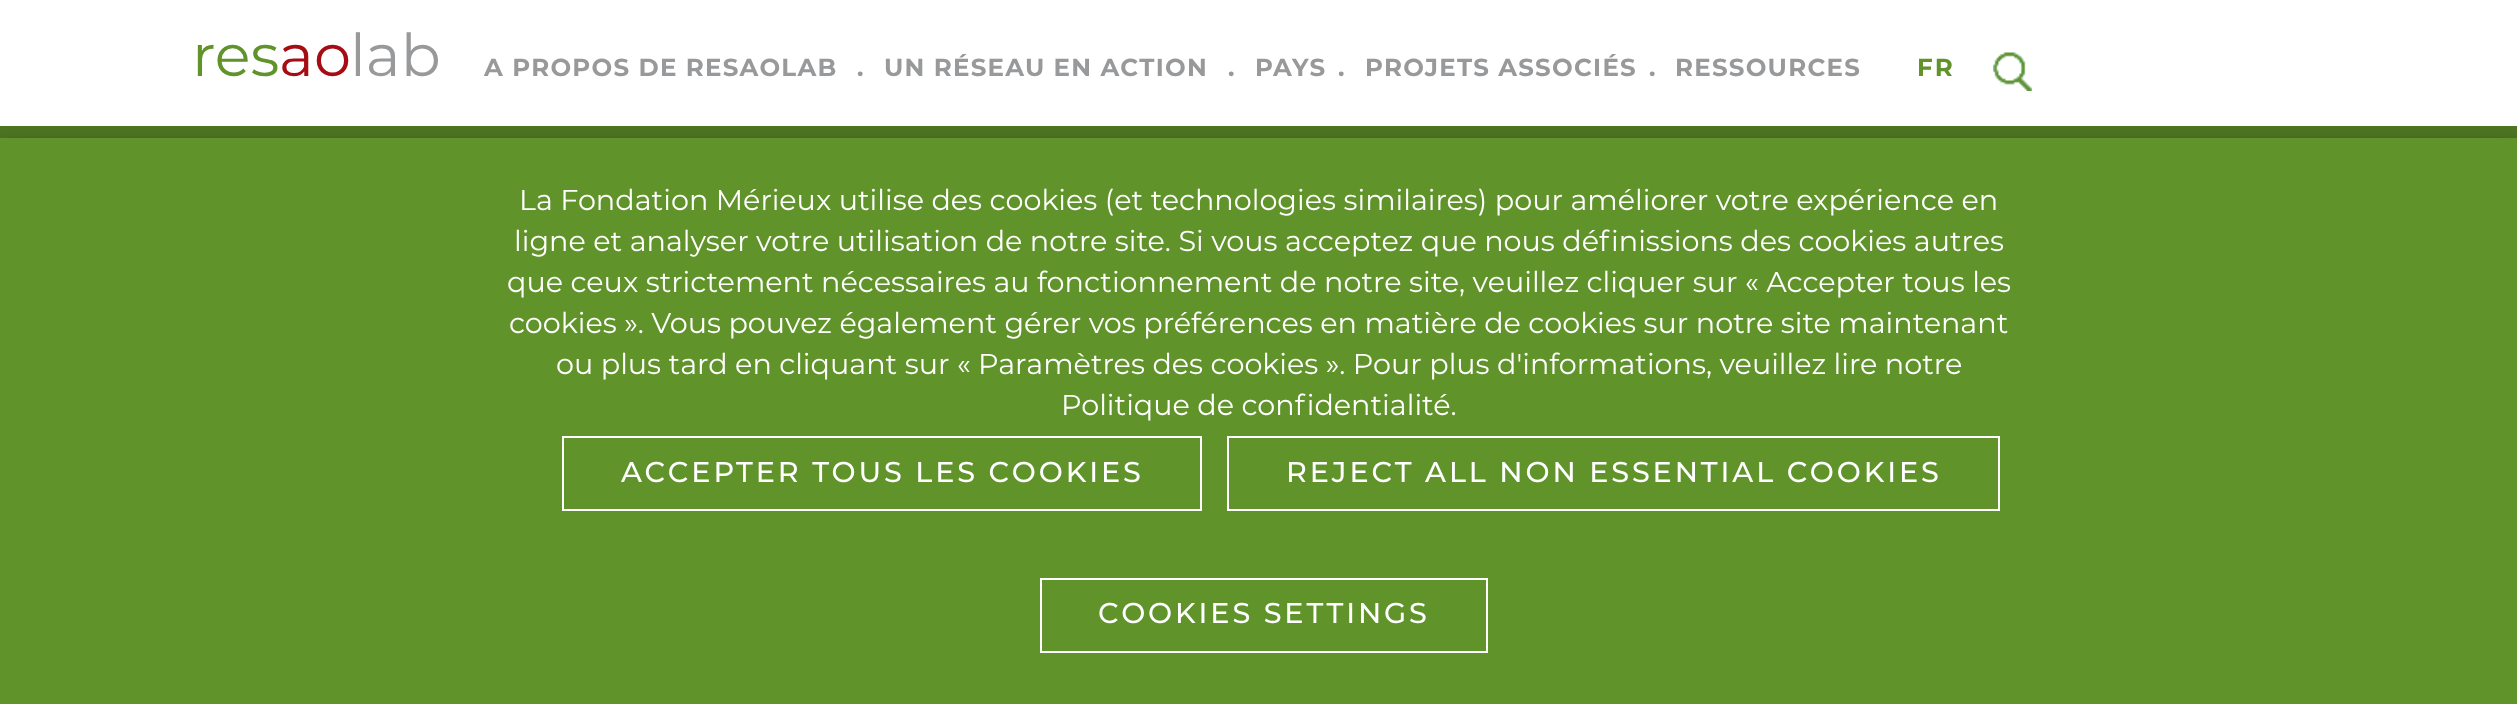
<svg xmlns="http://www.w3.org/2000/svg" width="2517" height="704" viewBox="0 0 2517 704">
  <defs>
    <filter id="blur1" x="-50%" y="-200%" width="200%" height="500%"><feGaussianBlur stdDeviation="9"/></filter>
  </defs>
  <rect width="100%" height="100%" fill="#ffffff"/>
  <text x="192" y="76" font-family="Montserrat" font-size="59" fill="#60932a">res</text>
  <text x="279" y="76" font-family="Montserrat" font-size="59" fill="#a60c14">ao</text>
  <text x="350" y="76" font-family="Montserrat" font-size="59" fill="#98999b">lab</text>
  <text x="484" y="76" font-family="Montserrat" font-size="24.5" font-weight="bold" letter-spacing="1.25" fill="#98999b">A PROPOS DE RESAOLAB</text>
  <text x="857" y="76" font-family="Montserrat" font-size="24.5" font-weight="bold" letter-spacing="1.25" fill="#98999b">.</text>
  <text x="884" y="76" font-family="Montserrat" font-size="24.5" font-weight="bold" letter-spacing="1.25" fill="#98999b">UN RÉSEAU EN ACTION</text>
  <text x="1228" y="76" font-family="Montserrat" font-size="24.5" font-weight="bold" letter-spacing="1.25" fill="#98999b">.</text>
  <text x="1255" y="76" font-family="Montserrat" font-size="24.5" font-weight="bold" letter-spacing="1.25" fill="#98999b">PAYS</text>
  <text x="1338" y="76" font-family="Montserrat" font-size="24.5" font-weight="bold" letter-spacing="1.25" fill="#98999b">.</text>
  <text x="1365" y="76" font-family="Montserrat" font-size="24.5" font-weight="bold" letter-spacing="1.25" fill="#98999b">PROJETS ASSOCIÉS</text>
  <text x="1649" y="76" font-family="Montserrat" font-size="24.5" font-weight="bold" letter-spacing="1.25" fill="#98999b">.</text>
  <text x="1675" y="76" font-family="Montserrat" font-size="24.5" font-weight="bold" letter-spacing="1.25" fill="#98999b">RESSOURCES</text>
  <text x="1917" y="76" font-family="Montserrat" font-size="24.5" font-weight="bold" letter-spacing="2" fill="#60932a">FR</text>
  <image x="1993" y="52" width="39" height="39" href="img1.png"/>
  <rect x="0" y="126" width="2517" height="12" fill="#4d7421"/>
  <rect x="0" y="147" width="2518" height="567" fill="#000000" fill-opacity="0.5" filter="url(#blur1)"/>
  <rect x="0" y="138" width="2517" height="566" fill="#60932a"/>
  <text x="519" y="210" font-family="Montserrat" font-size="28.65" fill="#ffffff">La Fondation Mérieux utilise des cookies (et technologies similaires) pour améliorer votre expérience en</text>
  <text x="514" y="251" font-family="Montserrat" font-size="28.65" fill="#ffffff">ligne et analyser votre utilisation de notre site. Si vous acceptez que nous définissions des cookies autres</text>
  <text x="507" y="292" font-family="Montserrat" font-size="28.65" fill="#ffffff">que ceux strictement nécessaires au fonctionnement de notre site, veuillez cliquer sur « Accepter tous les</text>
  <text x="509" y="333" font-family="Montserrat" font-size="28.65" fill="#ffffff">cookies ». Vous pouvez également gérer vos préférences en matière de cookies sur notre site maintenant</text>
  <text x="556" y="374" font-family="Montserrat" font-size="28.65" fill="#ffffff">ou plus tard en cliquant sur « Paramètres des cookies ». Pour plus d'informations, veuillez lire notre</text>
  <text x="1061" y="415" font-family="Montserrat" font-size="28.65" fill="#ffffff">Politique de confidentialité.</text>
  <rect x="563" y="437" width="638" height="73" fill="none" stroke="#ffffff" stroke-width="2"/>
  <text x="621" y="482" font-family="Montserrat" font-size="28.65" font-weight="500" letter-spacing="2.9" fill="#ffffff">ACCEPTER TOUS LES COOKIES</text>
  <rect x="1228" y="437" width="771" height="73" fill="none" stroke="#ffffff" stroke-width="2"/>
  <text x="1286" y="482" font-family="Montserrat" font-size="28.65" font-weight="500" letter-spacing="2.9" fill="#ffffff">REJECT ALL NON ESSENTIAL COOKIES</text>
  <rect x="1041" y="579" width="446" height="73" fill="none" stroke="#ffffff" stroke-width="2"/>
  <text x="1098" y="623" font-family="Montserrat" font-size="28.65" font-weight="500" letter-spacing="2.9" fill="#ffffff">COOKIES SETTINGS</text>
</svg>
